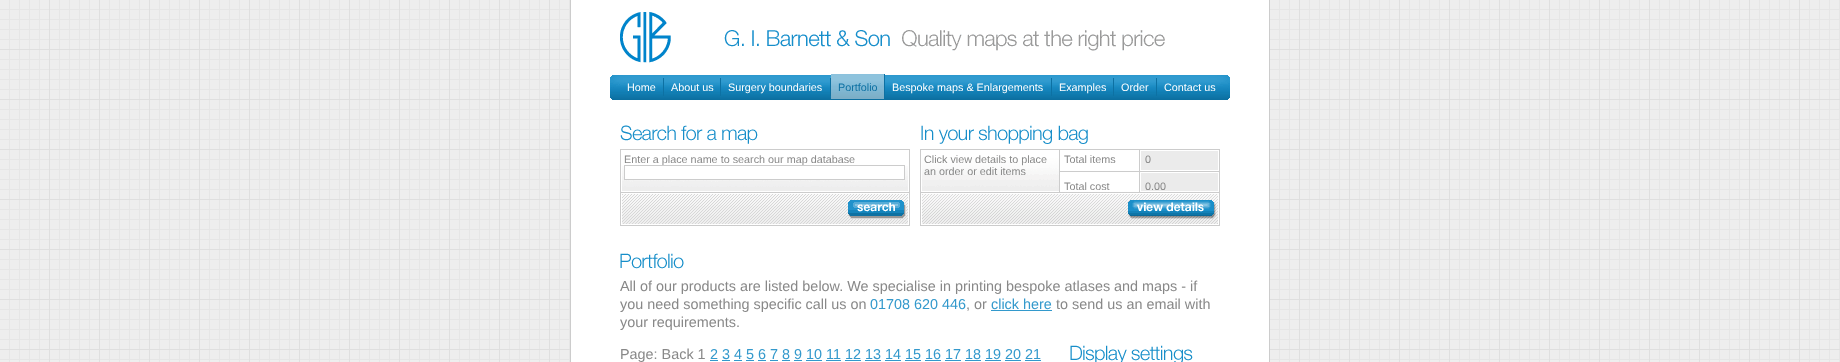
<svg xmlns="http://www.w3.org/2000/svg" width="1840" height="362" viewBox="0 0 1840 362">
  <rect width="100%" height="100%" fill="#eeeeee"/>
  <image x="0" y="0" width="1840" height="362" href="img1.png"/>
  <rect x="571" y="0" width="698" height="362" fill="#ffffff"/>
  <rect x="1269" y="0" width="1" height="362" fill="#cccccc"/>
  <rect x="570" y="0" width="1" height="362" fill="#cccccc"/>
  <image x="620" y="12" width="545" height="51" href="img2.png"/>
  <image x="610" y="75" width="620" height="25" href="img3.png"/>
  <text x="627" y="91" font-family="Liberation Sans" font-size="10.8" fill="#ffffff">Home</text>
  <rect x="663" y="78" width="1" height="18" fill="#0d71a3"/>
  <text x="671" y="91" font-family="Liberation Sans" font-size="10.8" fill="#ffffff">About us</text>
  <rect x="720" y="78" width="1" height="18" fill="#0d71a3"/>
  <text x="728" y="91" font-family="Liberation Sans" font-size="10.8" fill="#ffffff">Surgery boundaries</text>
  <rect x="830" y="78" width="1" height="18" fill="#0d71a3"/>
  <image x="831" y="74" width="53" height="25" href="img4.png"/>
  <text x="838" y="91" font-family="Liberation Sans" font-size="10.8" fill="#0d71a3">Portfolio</text>
  <rect x="884" y="74" width="1" height="26" fill="#0d71a3"/>
  <text x="892" y="91" font-family="Liberation Sans" font-size="10.8" fill="#ffffff">Bespoke maps &amp; Enlargements</text>
  <rect x="1051" y="78" width="1" height="18" fill="#0d71a3"/>
  <text x="1059" y="91" font-family="Liberation Sans" font-size="10.8" fill="#ffffff">Examples</text>
  <rect x="1113" y="78" width="1" height="18" fill="#0d71a3"/>
  <text x="1121" y="91" font-family="Liberation Sans" font-size="10.8" fill="#ffffff">Order</text>
  <rect x="1156" y="78" width="1" height="18" fill="#0d71a3"/>
  <text x="1164" y="91" font-family="Liberation Sans" font-size="10.8" fill="#ffffff">Contact us</text>
  <image x="620" y="125" width="138" height="19" href="img5.png"/>
  <image x="622" y="166" width="286" height="25" href="img6.png"/>
  <rect x="620.5" y="149.5" width="289" height="43" fill="none" stroke="#cccccc"/>
  <text x="624" y="163" font-family="Liberation Sans" font-size="10.8" fill="#888888">Enter a place name to search our map database</text>
  <rect x="624.5" y="165.5" width="280" height="14" fill="#ffffff" stroke="#cccccc"/>
  <rect x="909" y="193" width="1" height="33" fill="#cccccc"/>
  <rect x="620" y="225" width="290" height="1" fill="#cccccc"/>
  <rect x="620" y="193" width="1" height="33" fill="#cccccc"/>
  <image x="622" y="194" width="286" height="30" href="img7.png"/>
  <image x="921" y="125" width="167" height="19" href="img8.png"/>
  <image x="922" y="150" width="297" height="42" href="img9.png"/>
  <rect x="920.5" y="149.5" width="299" height="43" fill="none" stroke="#cccccc"/>
  <text x="924" y="163" font-family="Liberation Sans" font-size="10.8" fill="#888888">Click view details to place</text>
  <text x="924" y="175" font-family="Liberation Sans" font-size="10.8" fill="#888888">an order or edit items</text>
  <text x="1064" y="163" font-family="Liberation Sans" font-size="10.8" fill="#888888">Total items</text>
  <text x="1145" y="163" font-family="Liberation Sans" font-size="10.8" fill="#888888">0</text>
  <text x="1064" y="190" font-family="Liberation Sans" font-size="10.8" fill="#888888">Total cost</text>
  <text x="1145" y="190" font-family="Liberation Sans" font-size="10.8" fill="#888888">0.00</text>
  <rect x="1219" y="193" width="1" height="33" fill="#cccccc"/>
  <rect x="920" y="225" width="300" height="1" fill="#cccccc"/>
  <rect x="920" y="193" width="1" height="33" fill="#cccccc"/>
  <image x="922" y="194" width="296" height="30" href="img10.png"/>
  <image x="620" y="253" width="64" height="16" href="img11.png"/>
  <text x="620" y="291" font-family="Liberation Sans" font-size="14.4" fill="#888888">All of our products are listed below. We specialise in printing bespoke atlases and maps - if</text>
  <text x="620" y="309" font-family="Liberation Sans" font-size="14.4" fill="#888888">you need something specific call us on</text>
  <text x="870" y="309" font-family="Liberation Sans" font-size="14.4" fill="#3399cc">01708 620 446</text>
  <text x="966" y="309" font-family="Liberation Sans" font-size="14.4" fill="#888888">, or</text>
  <text x="991" y="309" font-family="Liberation Sans" font-size="14.4" fill="#3399cc">click here</text>
  <rect x="991" y="310" width="61" height="1" fill="#3399cc"/>
  <text x="1056" y="309" font-family="Liberation Sans" font-size="14.4" fill="#888888">to send us an email with</text>
  <text x="620" y="327" font-family="Liberation Sans" font-size="14.4" fill="#888888">your requirements.</text>
  <text x="620" y="359" font-family="Liberation Sans" font-size="14.4" fill="#888888">Page: Back 1</text>
  <text x="710" y="359" font-family="Liberation Sans" font-size="14.4" fill="#3399cc">2 3 4 5 6 7 8 9 10 11 12 13 14 15 16 17 18 19 20 21</text>
  <rect x="710" y="360" width="8" height="1" fill="#3399cc"/>
  <rect x="722" y="360" width="8" height="1" fill="#3399cc"/>
  <rect x="734" y="360" width="8" height="1" fill="#3399cc"/>
  <rect x="746" y="360" width="8" height="1" fill="#3399cc"/>
  <rect x="758" y="360" width="8" height="1" fill="#3399cc"/>
  <rect x="770" y="360" width="8" height="1" fill="#3399cc"/>
  <rect x="782" y="360" width="8" height="1" fill="#3399cc"/>
  <rect x="794" y="360" width="8" height="1" fill="#3399cc"/>
  <rect x="806" y="360" width="16" height="1" fill="#3399cc"/>
  <rect x="826" y="360" width="15" height="1" fill="#3399cc"/>
  <rect x="845" y="360" width="16" height="1" fill="#3399cc"/>
  <rect x="865" y="360" width="16" height="1" fill="#3399cc"/>
  <rect x="885" y="360" width="16" height="1" fill="#3399cc"/>
  <rect x="905" y="360" width="16" height="1" fill="#3399cc"/>
  <rect x="925" y="360" width="16" height="1" fill="#3399cc"/>
  <rect x="945" y="360" width="16" height="1" fill="#3399cc"/>
  <rect x="965" y="360" width="16" height="1" fill="#3399cc"/>
  <rect x="985" y="360" width="16" height="1" fill="#3399cc"/>
  <rect x="1005" y="360" width="16" height="1" fill="#3399cc"/>
  <rect x="1025" y="360" width="16" height="1" fill="#3399cc"/>
  <image x="1070" y="345" width="123" height="17" href="img12.png"/>
</svg>
